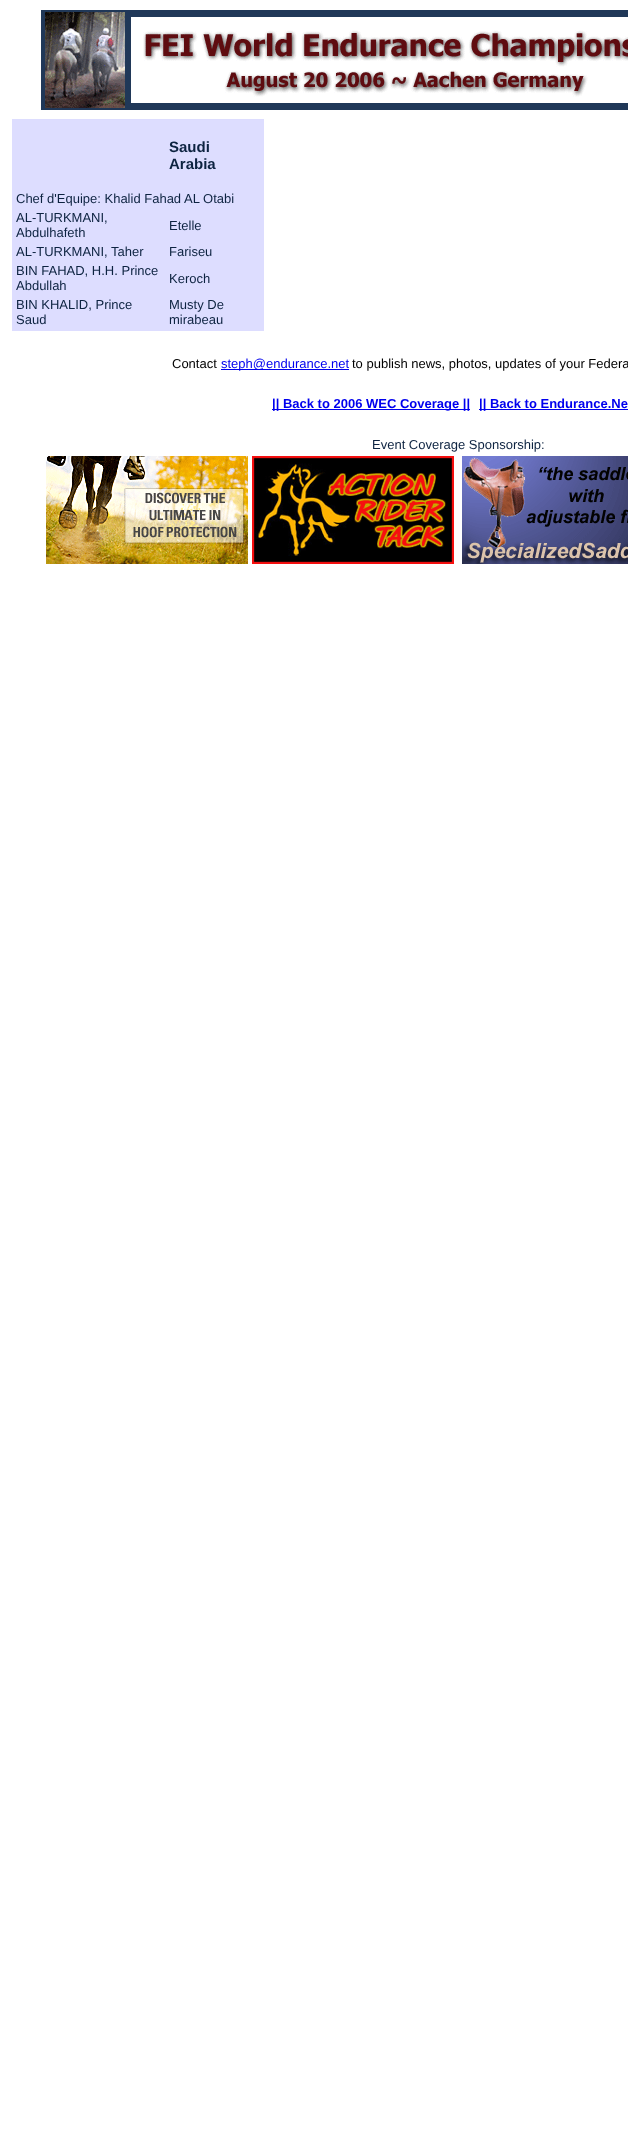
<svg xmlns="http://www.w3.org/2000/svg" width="628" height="2131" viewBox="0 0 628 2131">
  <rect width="100%" height="100%" fill="#ffffff"/>
  <image x="41" y="10" width="587" height="100" href="img1.png"/>
  <rect x="12" y="119" width="252" height="212" fill="#ddddff"/>
  <text x="169" y="152" font-family="Liberation Sans" font-size="15" font-weight="bold" fill="#0d2341">Saudi</text>
  <text x="169" y="169" font-family="Liberation Sans" font-size="15" font-weight="bold" fill="#0d2341">Arabia</text>
  <text x="16" y="203" font-family="Liberation Sans" font-size="13" fill="#0d2341">Chef d'Equipe: Khalid Fahad AL Otabi</text>
  <text x="16" y="222" font-family="Liberation Sans" font-size="13" fill="#0d2341">AL-TURKMANI,</text>
  <text x="16" y="237" font-family="Liberation Sans" font-size="13" fill="#0d2341">Abdulhafeth</text>
  <text x="169" y="230" font-family="Liberation Sans" font-size="13" fill="#0d2341">Etelle</text>
  <text x="16" y="256" font-family="Liberation Sans" font-size="13" fill="#0d2341">AL-TURKMANI, Taher</text>
  <text x="169" y="256" font-family="Liberation Sans" font-size="13" fill="#0d2341">Fariseu</text>
  <text x="16" y="275" font-family="Liberation Sans" font-size="13" fill="#0d2341">BIN FAHAD, H.H. Prince</text>
  <text x="16" y="290" font-family="Liberation Sans" font-size="13" fill="#0d2341">Abdullah</text>
  <text x="169" y="283" font-family="Liberation Sans" font-size="13" fill="#0d2341">Keroch</text>
  <text x="16" y="309" font-family="Liberation Sans" font-size="13" fill="#0d2341">BIN KHALID, Prince</text>
  <text x="16" y="324" font-family="Liberation Sans" font-size="13" fill="#0d2341">Saud</text>
  <text x="169" y="309" font-family="Liberation Sans" font-size="13" fill="#0d2341">Musty De</text>
  <text x="169" y="324" font-family="Liberation Sans" font-size="13" fill="#0d2341">mirabeau</text>
  <text x="172" y="368" font-family="Liberation Sans" font-size="13" fill="#000000">Contact</text>
  <rect x="221" y="369" width="128" height="1" fill="#0000ee"/>
  <text x="221" y="368" font-family="Liberation Sans" font-size="13" fill="#0000ee">steph@endurance.net</text>
  <text x="352" y="368" font-family="Liberation Sans" font-size="13" fill="#000000">to publish news, photos, updates of your Federa</text>
  <rect x="272" y="409" width="198" height="1" fill="#0000ee"/>
  <text x="272" y="408" font-family="Liberation Sans" font-size="13" font-weight="bold" fill="#0000ee">|| Back to 2006 WEC Coverage ||</text>
  <rect x="479" y="409" width="149" height="1" fill="#0000ee"/>
  <text x="479" y="408" font-family="Liberation Sans" font-size="13" font-weight="bold" fill="#0000ee">|| Back to Endurance.Ne</text>
  <text x="372" y="449" font-family="Liberation Sans" font-size="13" fill="#0d2341">Event Coverage Sponsorship:</text>
  <image x="46" y="456" width="202" height="108" href="img2.png"/>
  <image x="252" y="456" width="202" height="108" href="img3.png"/>
  <image x="462" y="456" width="166" height="108" href="img4.png"/>
</svg>
